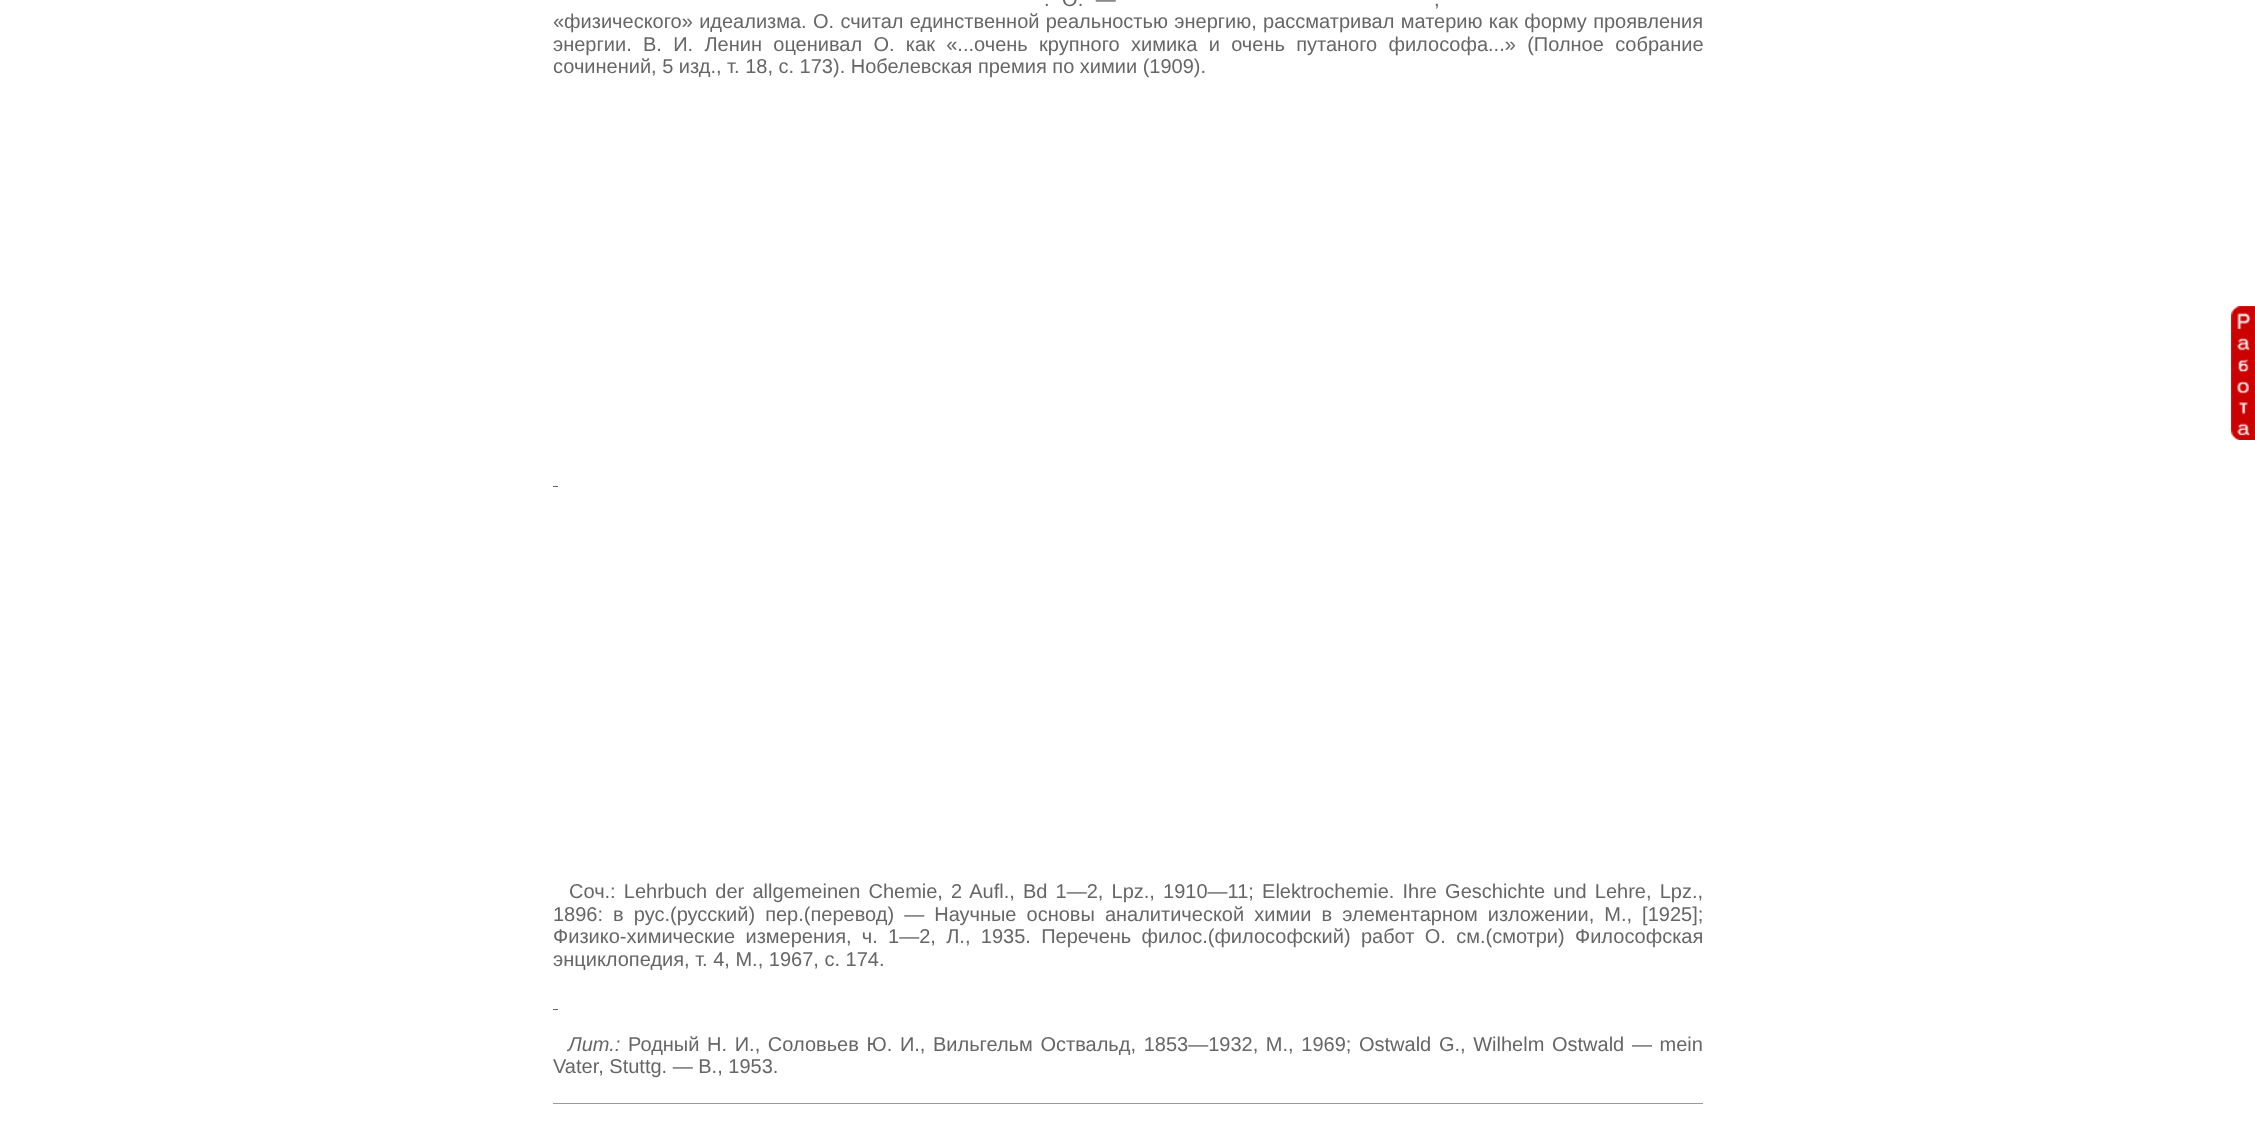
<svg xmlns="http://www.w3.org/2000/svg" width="2255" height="1134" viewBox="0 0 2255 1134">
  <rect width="100%" height="100%" fill="#ffffff"/>
  <text x="1044" y="6" word-spacing="7" font-family="Liberation Sans" font-size="20" fill="#666666">. О. —</text>
  <text x="1434" y="6" word-spacing="7" font-family="Liberation Sans" font-size="20" fill="#666666">,</text>
  <text x="553" y="28" word-spacing="0.75" font-family="Liberation Sans" font-size="20" fill="#666666">«физического» идеализма. О. считал единственной реальностью энергию, рассматривал материю как форму проявления</text>
  <text x="553" y="51" word-spacing="5.75" font-family="Liberation Sans" font-size="20" fill="#666666">энергии. В. И. Ленин оценивал О. как «...очень крупного химика и очень путаного философа...» (Полное собрание</text>
  <text x="553" y="73" font-family="Liberation Sans" font-size="20" fill="#666666">сочинений, 5 изд., т. 18, с. 173). Нобелевская премия по химии (1909).</text>
  <rect x="553" y="486" width="5" height="1" fill="#666666"/>
  <text x="569" y="898" word-spacing="2.6" font-family="Liberation Sans" font-size="20" fill="#666666">Соч.: Lehrbuch der allgemeinen Chemie, 2 Aufl., Bd 1—2, Lpz., 1910—11; Elektrochemie. Ihre Geschichte und Lehre, Lpz.,</text>
  <text x="553" y="921" word-spacing="4.5" font-family="Liberation Sans" font-size="20" fill="#666666">1896: в рус.(русский) пер.(перевод) — Научные основы аналитической химии в элементарном изложении, М., [1925];</text>
  <text x="553" y="943" word-spacing="4.75" font-family="Liberation Sans" font-size="20" fill="#666666">Физико-химические измерения, ч. 1—2, Л., 1935. Перечень филос.(философский) работ О. см.(смотри) Философская</text>
  <text x="553" y="966" font-family="Liberation Sans" font-size="20" fill="#666666">энциклопедия, т. 4, М., 1967, с. 174.</text>
  <rect x="553" y="1009" width="5" height="1" fill="#666666"/>
  <text x="568" y="1051" font-family="Liberation Sans" font-size="20" font-style="italic" fill="#666666">Лит.:</text>
  <text x="628" y="1051" word-spacing="2.1" font-family="Liberation Sans" font-size="20" fill="#666666">Родный Н. И., Соловьев Ю. И., Вильгельм Оствальд, 1853—1932, М., 1969; Ostwald G., Wilhelm Ostwald — mein</text>
  <text x="553" y="1073" font-family="Liberation Sans" font-size="20" fill="#666666">Vater, Stuttg. — B., 1953.</text>
  <rect x="553" y="1103" width="1150" height="1" fill="#999999"/>
  <image x="2231" y="306" width="24" height="134" href="img1.png"/>
  <image x="2231" y="306" width="24" height="131" href="img2.png"/>
</svg>
